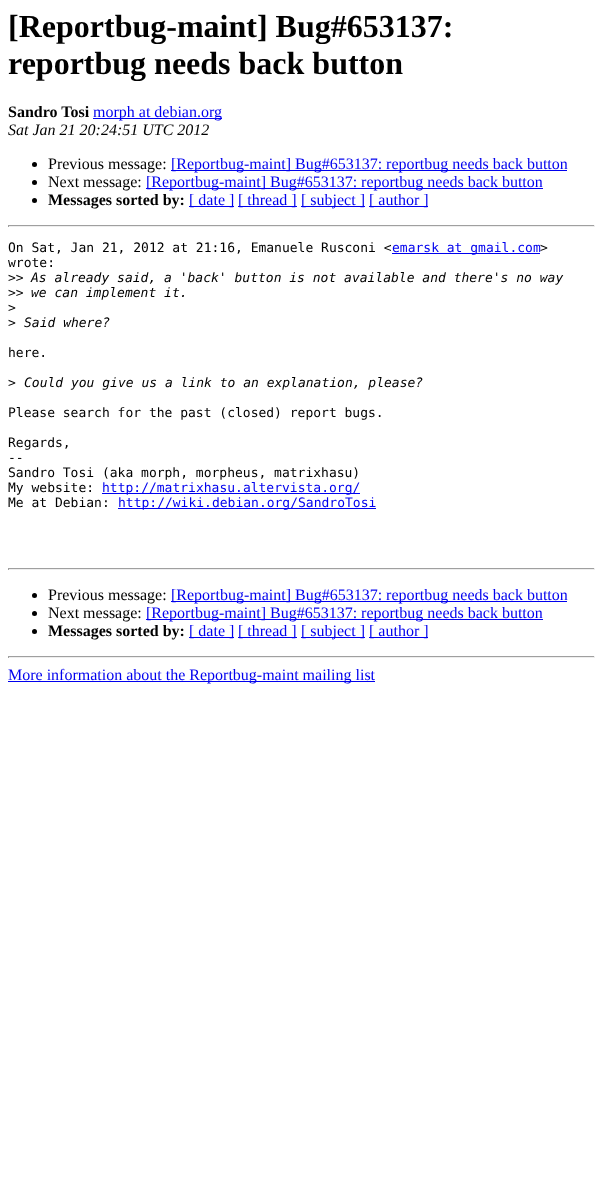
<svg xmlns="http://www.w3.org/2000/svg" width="603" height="1193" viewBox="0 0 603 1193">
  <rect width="100%" height="100%" fill="#ffffff"/>
  <text x="8" y="37" font-family="Liberation Serif" font-size="32" font-weight="bold" fill="#000000">[Reportbug-maint] Bug#653137:</text>
  <text x="8" y="74" font-family="Liberation Serif" font-size="32" font-weight="bold" fill="#000000">reportbug needs back button</text>
  <text x="8" y="117" font-family="Liberation Serif" font-size="16" font-weight="bold" fill="#000000">Sandro Tosi</text>
  <rect x="93" y="118" width="129" height="1" fill="#0000ee"/>
  <text x="93" y="117" font-family="Liberation Serif" font-size="16" fill="#0000ee">morph at debian.org</text>
  <text x="8" y="135" font-family="Liberation Serif" font-size="16" font-style="italic" fill="#000000">Sat Jan 21 20:24:51 UTC 2012</text>
  <circle cx="34.5" cy="164.5" r="2.5" fill="#000000"/>
  <text x="48" y="169" font-family="Liberation Serif" font-size="16" fill="#000000">Previous message:</text>
  <rect x="171" y="170" width="396" height="1" fill="#0000ee"/>
  <text x="171" y="169" font-family="Liberation Serif" font-size="16" fill="#0000ee">[Reportbug-maint] Bug#653137: reportbug needs back button</text>
  <circle cx="34.5" cy="182.5" r="2.5" fill="#000000"/>
  <text x="48" y="187" font-family="Liberation Serif" font-size="16" fill="#000000">Next message:</text>
  <rect x="146" y="188" width="397" height="1" fill="#0000ee"/>
  <text x="146" y="187" font-family="Liberation Serif" font-size="16" fill="#0000ee">[Reportbug-maint] Bug#653137: reportbug needs back button</text>
  <circle cx="34.5" cy="200.5" r="2.5" fill="#000000"/>
  <text x="48" y="205" font-family="Liberation Serif" font-size="16" font-weight="bold" fill="#000000">Messages sorted by:</text>
  <rect x="189" y="206" width="45" height="1" fill="#0000ee"/>
  <text x="189" y="205" font-family="Liberation Serif" font-size="16" fill="#0000ee">[ date ]</text>
  <rect x="238" y="206" width="59" height="1" fill="#0000ee"/>
  <text x="238" y="205" font-family="Liberation Serif" font-size="16" fill="#0000ee">[ thread ]</text>
  <rect x="301" y="206" width="64" height="1" fill="#0000ee"/>
  <text x="301" y="205" font-family="Liberation Serif" font-size="16" fill="#0000ee">[ subject ]</text>
  <rect x="369" y="206" width="59" height="1" fill="#0000ee"/>
  <text x="369" y="205" font-family="Liberation Serif" font-size="16" fill="#0000ee">[ author ]</text>
  <rect x="8" y="225" width="587" height="1" fill="#9f9f9f"/>
  <rect x="594" y="225" width="1" height="2" fill="#eeeeee"/>
  <rect x="8" y="226" width="587" height="1" fill="#eeeeee"/>
  <rect x="8" y="225" width="1" height="2" fill="#9f9f9f"/>
  <text x="8" y="252" font-family="DejaVu Sans Mono" font-size="13" fill="#000000">On Sat, Jan 21, 2012 at 21:16, Emanuele Rusconi &lt;</text>
  <rect x="392" y="253" width="148" height="1" fill="#0000ee"/>
  <text x="392" y="252" font-family="DejaVu Sans Mono" font-size="13" fill="#0000ee">emarsk at gmail.com</text>
  <text x="540" y="252" font-family="DejaVu Sans Mono" font-size="13" fill="#000000">&gt;</text>
  <text x="8" y="267" font-family="DejaVu Sans Mono" font-size="13" fill="#000000">wrote:</text>
  <text x="8" y="282" font-family="DejaVu Sans Mono" font-size="13" fill="#000000">&gt;&gt;</text>
  <text x="31" y="282" font-family="DejaVu Sans Mono" font-size="13" font-style="italic" fill="#000000">As already said, a 'back' button is not available and there's no way</text>
  <text x="8" y="297" font-family="DejaVu Sans Mono" font-size="13" fill="#000000">&gt;&gt;</text>
  <text x="31" y="297" font-family="DejaVu Sans Mono" font-size="13" font-style="italic" fill="#000000">we can implement it.</text>
  <text x="8" y="312" font-family="DejaVu Sans Mono" font-size="13" fill="#000000">&gt;</text>
  <text x="8" y="327" font-family="DejaVu Sans Mono" font-size="13" fill="#000000">&gt;</text>
  <text x="24" y="327" font-family="DejaVu Sans Mono" font-size="13" font-style="italic" fill="#000000">Said where?</text>
  <text x="8" y="357" font-family="DejaVu Sans Mono" font-size="13" fill="#000000">here.</text>
  <text x="8" y="387" font-family="DejaVu Sans Mono" font-size="13" fill="#000000">&gt;</text>
  <text x="24" y="387" font-family="DejaVu Sans Mono" font-size="13" font-style="italic" fill="#000000">Could you give us a link to an explanation, please?</text>
  <text x="8" y="417" font-family="DejaVu Sans Mono" font-size="13" fill="#000000">Please search for the past (closed) report bugs.</text>
  <text x="8" y="447" font-family="DejaVu Sans Mono" font-size="13" fill="#000000">Regards,</text>
  <text x="8" y="462" font-family="DejaVu Sans Mono" font-size="13" fill="#000000">--</text>
  <text x="8" y="477" font-family="DejaVu Sans Mono" font-size="13" fill="#000000">Sandro Tosi (aka morph, morpheus, matrixhasu)</text>
  <text x="8" y="492" font-family="DejaVu Sans Mono" font-size="13" fill="#000000">My website:</text>
  <rect x="102" y="493" width="258" height="1" fill="#0000ee"/>
  <text x="102" y="492" font-family="DejaVu Sans Mono" font-size="13" fill="#0000ee">http://matrixhasu.altervista.org/</text>
  <text x="8" y="507" font-family="DejaVu Sans Mono" font-size="13" fill="#000000">Me at Debian:</text>
  <rect x="118" y="508" width="258" height="1" fill="#0000ee"/>
  <text x="118" y="507" font-family="DejaVu Sans Mono" font-size="13" fill="#0000ee">http://wiki.debian.org/SandroTosi</text>
  <rect x="8" y="568" width="587" height="1" fill="#9f9f9f"/>
  <rect x="594" y="568" width="1" height="2" fill="#eeeeee"/>
  <rect x="8" y="569" width="587" height="1" fill="#eeeeee"/>
  <rect x="8" y="568" width="1" height="2" fill="#9f9f9f"/>
  <circle cx="34.5" cy="595.5" r="2.5" fill="#000000"/>
  <text x="48" y="600" font-family="Liberation Serif" font-size="16" fill="#000000">Previous message:</text>
  <rect x="171" y="601" width="396" height="1" fill="#0000ee"/>
  <text x="171" y="600" font-family="Liberation Serif" font-size="16" fill="#0000ee">[Reportbug-maint] Bug#653137: reportbug needs back button</text>
  <circle cx="34.5" cy="613.5" r="2.5" fill="#000000"/>
  <text x="48" y="618" font-family="Liberation Serif" font-size="16" fill="#000000">Next message:</text>
  <rect x="146" y="619" width="397" height="1" fill="#0000ee"/>
  <text x="146" y="618" font-family="Liberation Serif" font-size="16" fill="#0000ee">[Reportbug-maint] Bug#653137: reportbug needs back button</text>
  <circle cx="34.5" cy="631.5" r="2.5" fill="#000000"/>
  <text x="48" y="636" font-family="Liberation Serif" font-size="16" font-weight="bold" fill="#000000">Messages sorted by:</text>
  <rect x="189" y="637" width="45" height="1" fill="#0000ee"/>
  <text x="189" y="636" font-family="Liberation Serif" font-size="16" fill="#0000ee">[ date ]</text>
  <rect x="238" y="637" width="59" height="1" fill="#0000ee"/>
  <text x="238" y="636" font-family="Liberation Serif" font-size="16" fill="#0000ee">[ thread ]</text>
  <rect x="301" y="637" width="64" height="1" fill="#0000ee"/>
  <text x="301" y="636" font-family="Liberation Serif" font-size="16" fill="#0000ee">[ subject ]</text>
  <rect x="369" y="637" width="59" height="1" fill="#0000ee"/>
  <text x="369" y="636" font-family="Liberation Serif" font-size="16" fill="#0000ee">[ author ]</text>
  <rect x="8" y="656" width="587" height="1" fill="#9f9f9f"/>
  <rect x="594" y="656" width="1" height="2" fill="#eeeeee"/>
  <rect x="8" y="657" width="587" height="1" fill="#eeeeee"/>
  <rect x="8" y="656" width="1" height="2" fill="#9f9f9f"/>
  <rect x="8" y="681" width="367" height="1" fill="#0000ee"/>
  <text x="8" y="680" font-family="Liberation Serif" font-size="16" fill="#0000ee">More information about the Reportbug-maint mailing list</text>
</svg>
